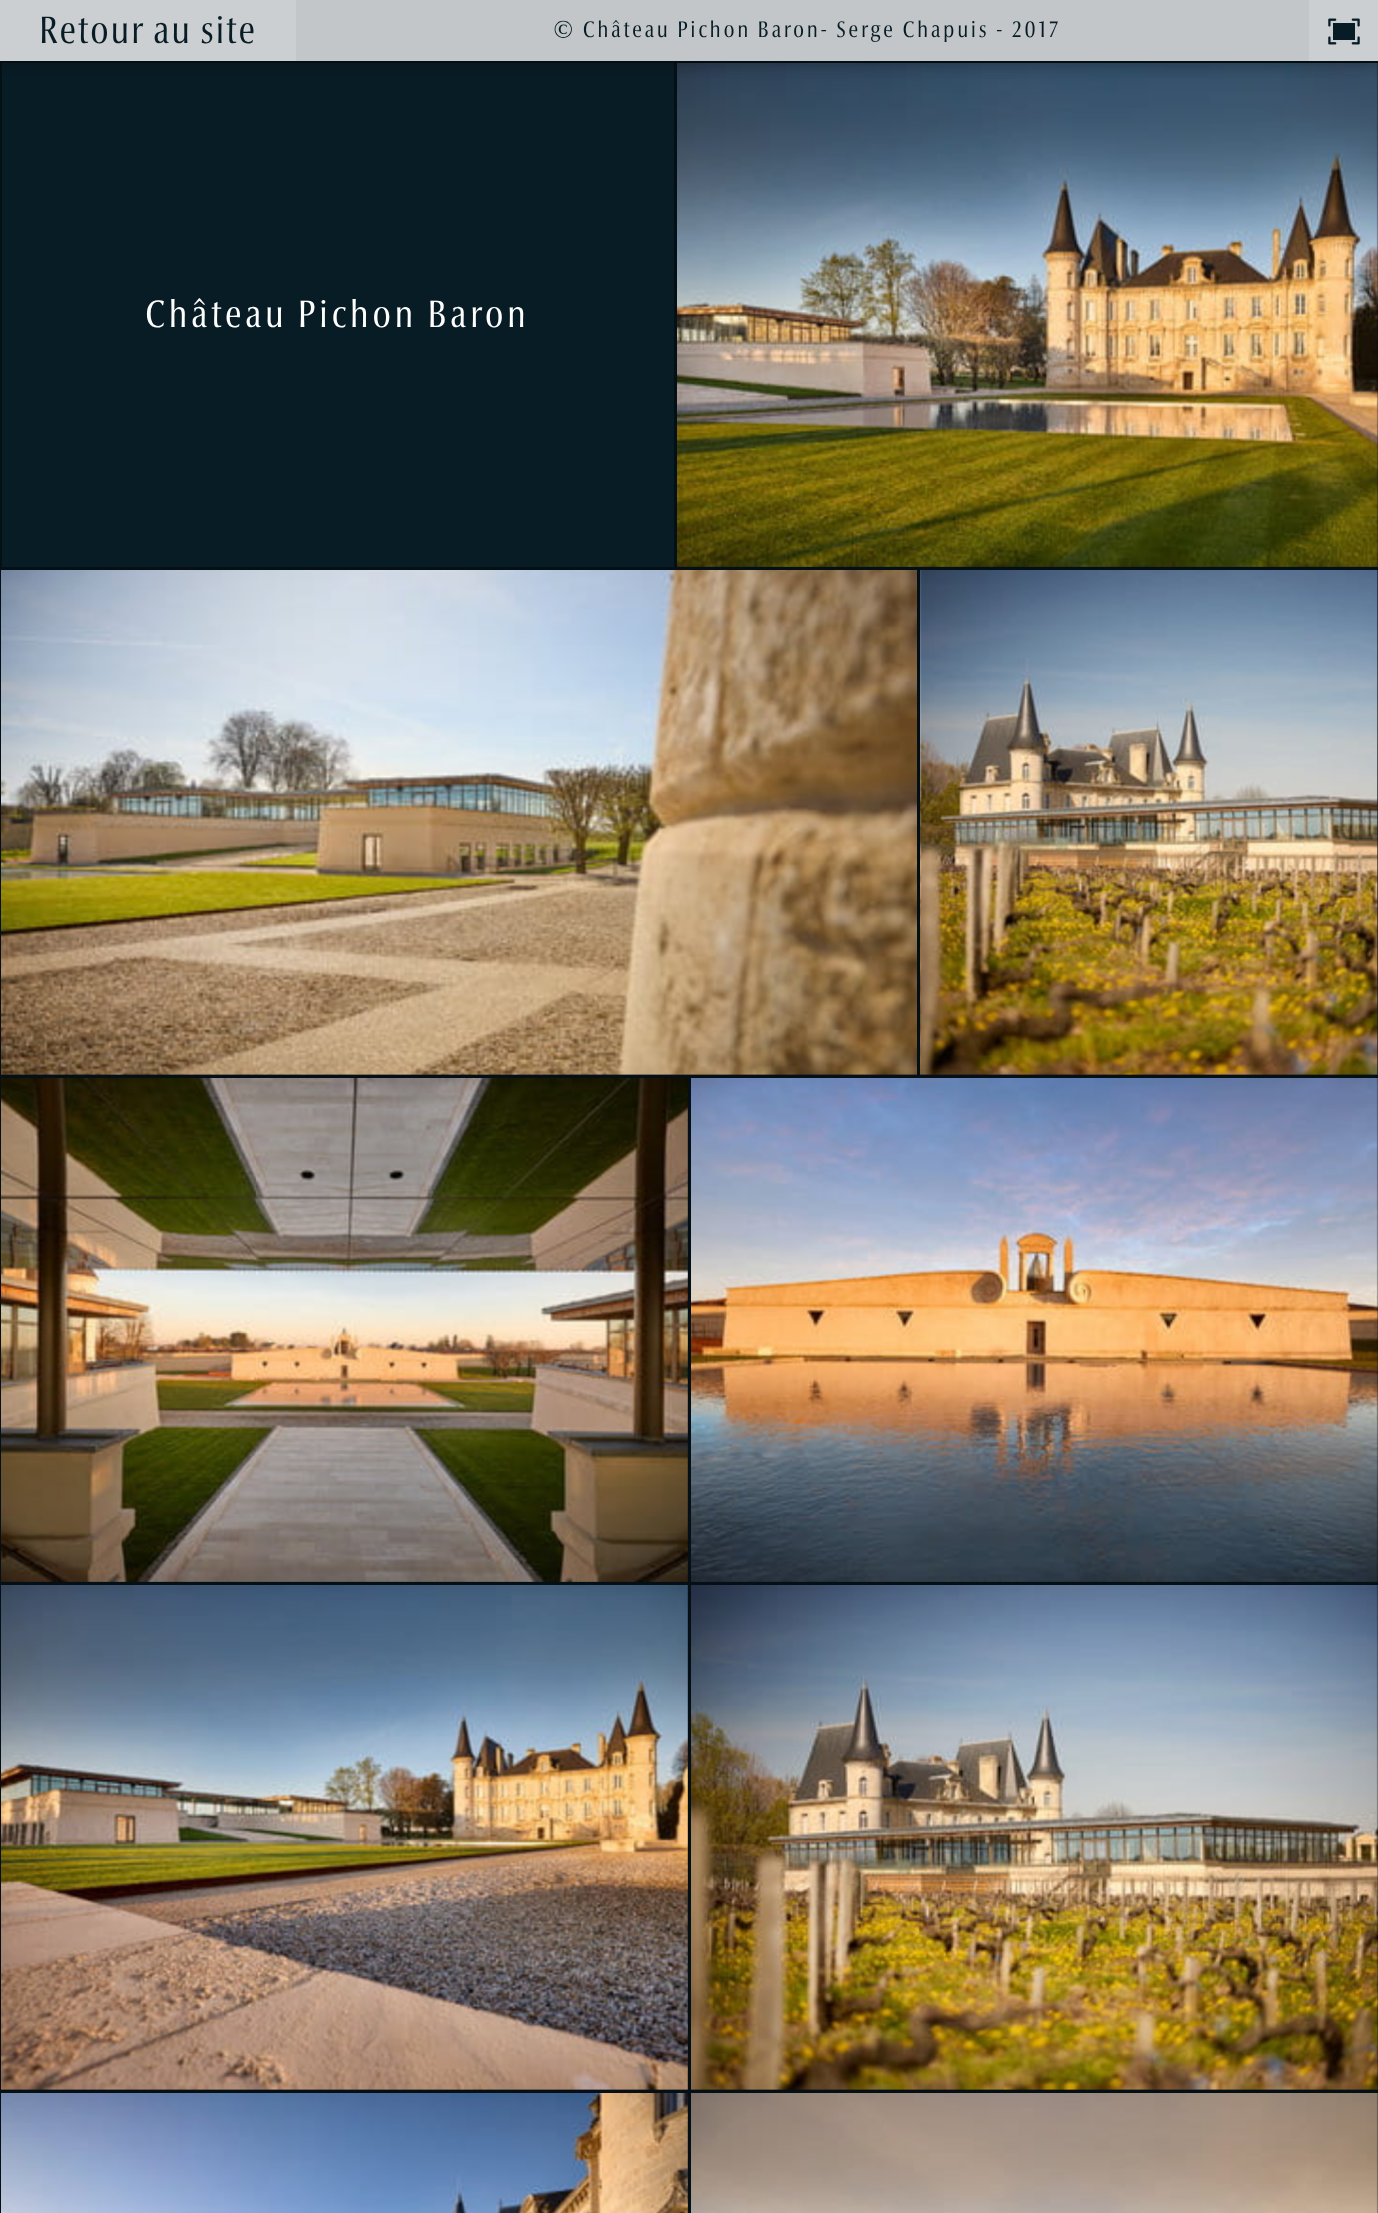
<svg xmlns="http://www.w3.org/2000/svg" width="1378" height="2213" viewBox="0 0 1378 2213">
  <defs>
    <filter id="blur1" x="-50%" y="-200%" width="200%" height="500%"><feGaussianBlur stdDeviation="9"/></filter>
  </defs>
  <rect width="100%" height="100%" fill="#051016"/>
  <rect x="2" y="63" width="672" height="504" fill="#081c25"/>
  <image x="677" y="63" width="701" height="504" href="img2.png"/>
  <rect x="0" y="0" width="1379" height="61" fill="#000000" fill-opacity="0.4" filter="url(#blur1)"/>
  <rect x="296" y="0" width="1013" height="61" fill="#c2c6c9"/>
  <rect x="0" y="0" width="296" height="61" fill="#cbcfd1"/>
  <text x="39" y="43" font-family="optima" font-size="38.5" letter-spacing="1.75" fill="#081c25">Retour au site</text>
  <text x="553" y="37" font-family="optima" font-size="22.75" letter-spacing="2.6" fill="#081c25">© Château Pichon Baron- Serge Chapuis - 2017</text>
  <rect x="1309" y="0" width="69" height="61" fill="#cbcfd1"/>
  <image x="1328" y="18" width="32" height="27" href="img1.png"/>
  <text x="145" y="327" font-family="optima" font-size="38.5" letter-spacing="3.5" fill="#ffffff">Château Pichon Baron</text>
  <image x="1" y="570" width="916" height="505" href="img3.png"/>
  <image x="920" y="570" width="458" height="505" href="img4.png"/>
  <image x="1" y="1078" width="687" height="504" href="img5.png"/>
  <image x="691" y="1078" width="687" height="504" href="img6.png"/>
  <image x="1" y="1585" width="687" height="505" href="img7.png"/>
  <image x="691" y="1585" width="687" height="505" href="img8.png"/>
  <image x="1" y="2093" width="687" height="120" href="img9.png"/>
  <image x="691" y="2093" width="687" height="120" href="img10.png"/>
</svg>
